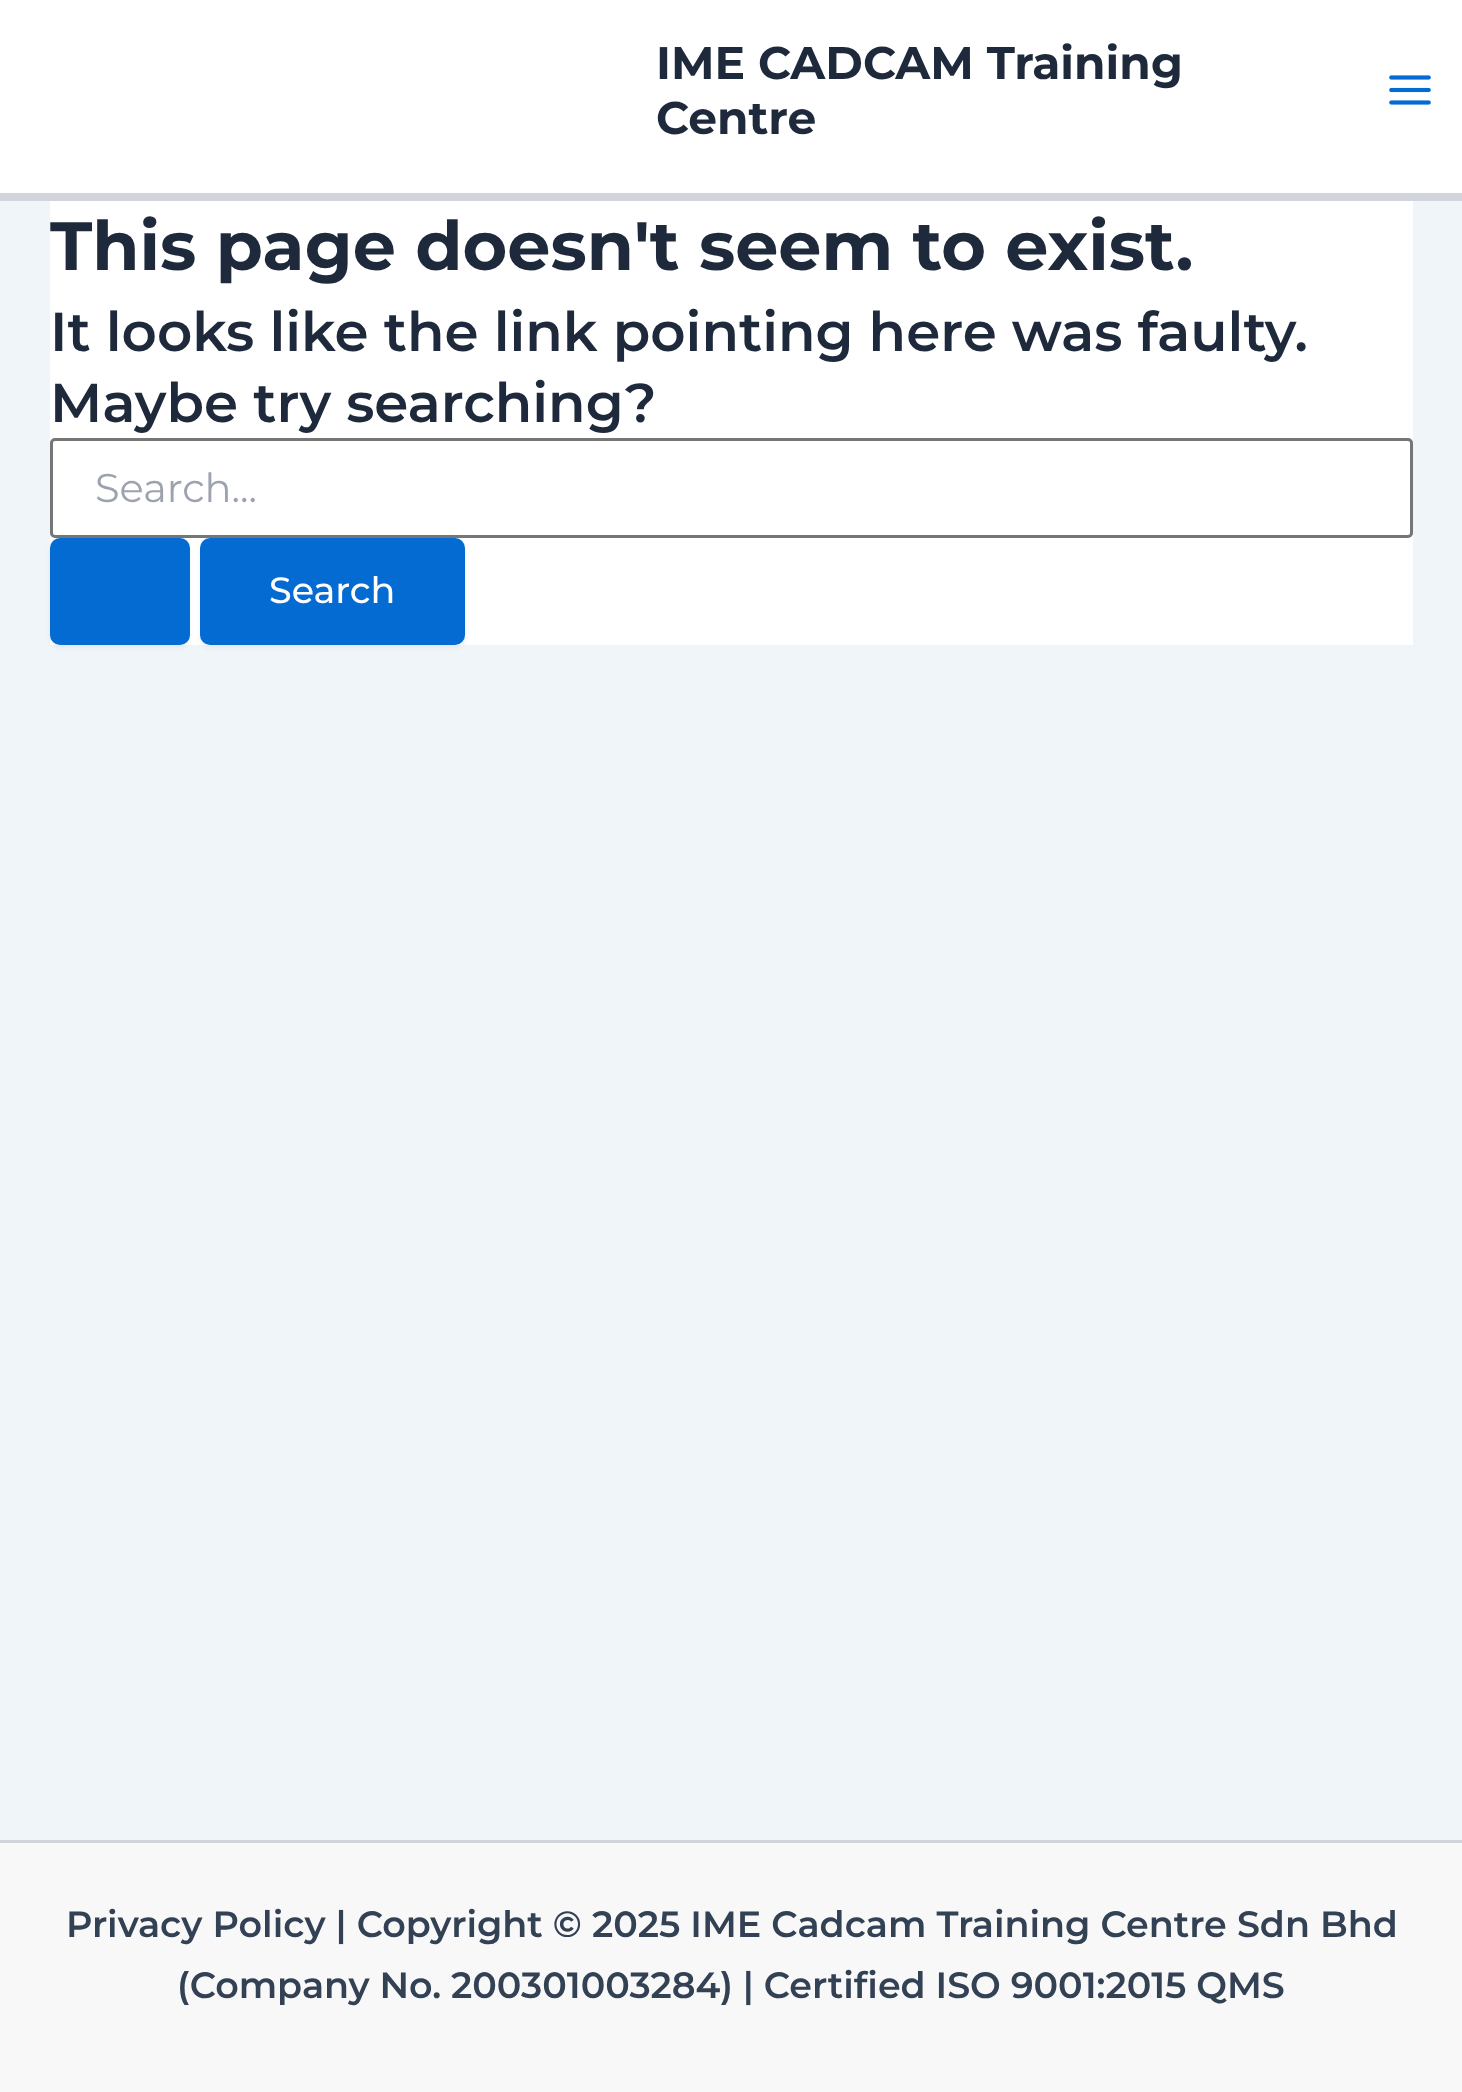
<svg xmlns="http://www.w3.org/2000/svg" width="1462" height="2092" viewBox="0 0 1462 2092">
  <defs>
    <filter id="blur1" x="-50%" y="-200%" width="200%" height="500%"><feGaussianBlur stdDeviation="2.5"/></filter>
  </defs>
  <rect width="100%" height="100%" fill="#f0f5fa"/>
  <rect x="0" y="0" width="1462" height="193" fill="#ffffff"/>
  <rect x="0" y="193" width="1462" height="8" fill="#d1d5db"/>
  <text x="656" y="79" font-family="Montserrat" font-size="45.6" font-weight="bold" fill="#1e293b">IME CADCAM Training</text>
  <text x="656" y="134" font-family="Montserrat" font-size="45.6" font-weight="bold" fill="#1e293b">Centre</text>
  <image x="1389" y="75" width="42" height="30" href="img1.png"/>
  <rect x="50" y="201" width="1363" height="444" fill="#ffffff"/>
  <text x="50" y="270" font-family="Montserrat" font-size="68.4" font-weight="bold" fill="#1e293b">This page doesn't seem to exist.</text>
  <text x="50" y="351" font-family="Montserrat" font-size="54.75" font-weight="600" fill="#1e293b">It looks like the link pointing here was faulty.</text>
  <text x="50" y="422" font-family="Montserrat" font-size="54.75" font-weight="600" fill="#1e293b">Maybe try searching?</text>
  <rect x="51.5" y="439.5" width="1360" height="97" rx="3.5" fill="none" stroke="#767676" stroke-width="3"/>
  <text x="95" y="502" font-family="Montserrat" font-size="40" fill="#9ca3af">Search...</text>
  <rect x="50" y="540" width="140" height="108" rx="10" fill="#000000" fill-opacity="0.05" filter="url(#blur1)"/>
  <rect x="50" y="538" width="140" height="107" rx="10" fill="#046bd2"/>
  <rect x="200" y="540" width="265" height="108" rx="10" fill="#000000" fill-opacity="0.05" filter="url(#blur1)"/>
  <rect x="200" y="538" width="265" height="107" rx="10" fill="#046bd2"/>
  <text x="269" y="603" font-family="Montserrat" font-size="36.5" font-weight="500" fill="#ffffff">Search</text>
  <rect x="0" y="1843" width="1462" height="249" fill="#f8f8f8"/>
  <rect x="0" y="1840" width="1462" height="3" fill="#d1d5db"/>
  <text x="66" y="1937" font-family="Montserrat" font-size="36.5" font-weight="600" fill="#334155">Privacy Policy | Copyright © 2025 IME Cadcam Training Centre Sdn Bhd</text>
  <text x="177" y="1998" word-spacing="-0.25" font-family="Montserrat" font-size="36.5" font-weight="600" fill="#334155">(Company No. 200301003284) | Certified ISO 9001:2015 QMS</text>
</svg>
